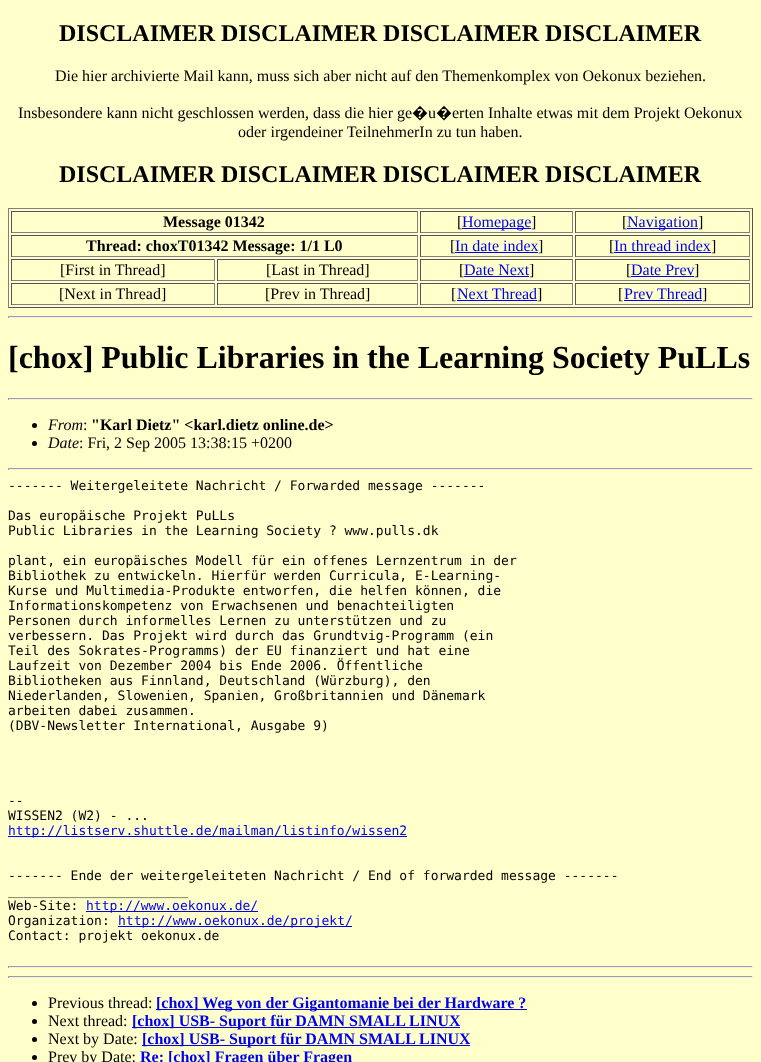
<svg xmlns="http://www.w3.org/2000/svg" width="761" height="1062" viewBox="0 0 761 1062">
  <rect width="100%" height="100%" fill="#ffffcc"/>
  <text x="59" y="41" font-family="Liberation Serif" font-size="24" font-weight="bold" fill="#000000">DISCLAIMER DISCLAIMER DISCLAIMER DISCLAIMER</text>
  <text x="55" y="81" font-family="Liberation Serif" font-size="16" fill="#000000">Die hier archivierte Mail kann, muss sich aber nicht auf den Themenkomplex von Oekonux beziehen.</text>
  <text x="18" y="118" font-family="Liberation Serif" font-size="16" fill="#000000">Insbesondere kann nicht geschlossen werden, dass die hier ge</text>
  <text x="412" y="118" font-family="Noto Sans" font-size="16" fill="#000000">�</text>
  <text x="428" y="118" font-family="Liberation Serif" font-size="16" fill="#000000">u</text>
  <text x="436" y="118" font-family="Noto Sans" font-size="16" fill="#000000">�</text>
  <text x="452" y="118" font-family="Liberation Serif" font-size="16" fill="#000000">erten Inhalte etwas mit dem Projekt Oekonux</text>
  <text x="238" y="137" font-family="Liberation Serif" font-size="16" fill="#000000">oder irgendeiner TeilnehmerIn zu tun haben.</text>
  <text x="59" y="182" font-family="Liberation Serif" font-size="24" font-weight="bold" fill="#000000">DISCLAIMER DISCLAIMER DISCLAIMER DISCLAIMER</text>
  <rect x="8" y="208" width="745" height="1" fill="#808080"/>
  <rect x="752" y="208" width="1" height="100" fill="#555555"/>
  <rect x="8" y="307" width="745" height="1" fill="#555555"/>
  <rect x="8" y="208" width="1" height="100" fill="#808080"/>
  <rect x="11" y="211" width="407" height="1" fill="#555555"/>
  <rect x="417" y="211" width="1" height="22" fill="#808080"/>
  <rect x="11" y="232" width="407" height="1" fill="#808080"/>
  <rect x="11" y="211" width="1" height="22" fill="#555555"/>
  <text x="163" y="227" font-family="Liberation Serif" font-size="16" font-weight="bold" fill="#000000">Message 01342</text>
  <rect x="420" y="211" width="153" height="1" fill="#555555"/>
  <rect x="572" y="211" width="1" height="22" fill="#808080"/>
  <rect x="420" y="232" width="153" height="1" fill="#808080"/>
  <rect x="420" y="211" width="1" height="22" fill="#555555"/>
  <text x="457" y="227" font-family="Liberation Serif" font-size="16" fill="#000000">[</text>
  <rect x="462" y="228" width="69" height="1" fill="#0000ee"/>
  <text x="462" y="227" font-family="Liberation Serif" font-size="16" fill="#0000ee">Homepage</text>
  <text x="531" y="227" font-family="Liberation Serif" font-size="16" fill="#000000">]</text>
  <rect x="575" y="211" width="175" height="1" fill="#555555"/>
  <rect x="749" y="211" width="1" height="22" fill="#808080"/>
  <rect x="575" y="232" width="175" height="1" fill="#808080"/>
  <rect x="575" y="211" width="1" height="22" fill="#555555"/>
  <text x="622" y="227" font-family="Liberation Serif" font-size="16" fill="#000000">[</text>
  <rect x="627" y="228" width="71" height="1" fill="#0000ee"/>
  <text x="627" y="227" font-family="Liberation Serif" font-size="16" fill="#0000ee">Navigation</text>
  <text x="698" y="227" font-family="Liberation Serif" font-size="16" fill="#000000">]</text>
  <rect x="11" y="235" width="407" height="1" fill="#555555"/>
  <rect x="417" y="235" width="1" height="22" fill="#808080"/>
  <rect x="11" y="256" width="407" height="1" fill="#808080"/>
  <rect x="11" y="235" width="1" height="22" fill="#555555"/>
  <text x="86" y="251" font-family="Liberation Serif" font-size="16" font-weight="bold" fill="#000000">Thread: choxT01342 Message: 1/1 L0</text>
  <rect x="420" y="235" width="153" height="1" fill="#555555"/>
  <rect x="572" y="235" width="1" height="22" fill="#808080"/>
  <rect x="420" y="256" width="153" height="1" fill="#808080"/>
  <rect x="420" y="235" width="1" height="22" fill="#555555"/>
  <text x="450" y="251" font-family="Liberation Serif" font-size="16" fill="#000000">[</text>
  <text x="455" y="251" font-family="Liberation Serif" font-size="16" fill="#0000ee">In date index</text>
  <rect x="455" y="252" width="83" height="1" fill="#0000ee"/>
  <text x="538" y="251" font-family="Liberation Serif" font-size="16" fill="#000000">]</text>
  <rect x="575" y="235" width="175" height="1" fill="#555555"/>
  <rect x="749" y="235" width="1" height="22" fill="#808080"/>
  <rect x="575" y="256" width="175" height="1" fill="#808080"/>
  <rect x="575" y="235" width="1" height="22" fill="#555555"/>
  <text x="609" y="251" font-family="Liberation Serif" font-size="16" fill="#000000">[</text>
  <text x="614" y="251" font-family="Liberation Serif" font-size="16" fill="#0000ee">In thread index</text>
  <rect x="614" y="252" width="97" height="1" fill="#0000ee"/>
  <text x="711" y="251" font-family="Liberation Serif" font-size="16" fill="#000000">]</text>
  <rect x="11" y="259" width="204" height="1" fill="#555555"/>
  <rect x="214" y="259" width="1" height="22" fill="#808080"/>
  <rect x="11" y="280" width="204" height="1" fill="#808080"/>
  <rect x="11" y="259" width="1" height="22" fill="#555555"/>
  <text x="60" y="275" font-family="Liberation Serif" font-size="16" fill="#000000">[First in Thread]</text>
  <rect x="217" y="259" width="201" height="1" fill="#555555"/>
  <rect x="417" y="259" width="1" height="22" fill="#808080"/>
  <rect x="217" y="280" width="201" height="1" fill="#808080"/>
  <rect x="217" y="259" width="1" height="22" fill="#555555"/>
  <text x="266" y="275" font-family="Liberation Serif" font-size="16" fill="#000000">[Last in Thread]</text>
  <rect x="420" y="259" width="153" height="1" fill="#555555"/>
  <rect x="572" y="259" width="1" height="22" fill="#808080"/>
  <rect x="420" y="280" width="153" height="1" fill="#808080"/>
  <rect x="420" y="259" width="1" height="22" fill="#555555"/>
  <text x="459" y="275" font-family="Liberation Serif" font-size="16" fill="#000000">[</text>
  <text x="464" y="275" font-family="Liberation Serif" font-size="16" fill="#0000ee">Date Next</text>
  <rect x="464" y="276" width="65" height="1" fill="#0000ee"/>
  <text x="529" y="275" font-family="Liberation Serif" font-size="16" fill="#000000">]</text>
  <rect x="575" y="259" width="175" height="1" fill="#555555"/>
  <rect x="749" y="259" width="1" height="22" fill="#808080"/>
  <rect x="575" y="280" width="175" height="1" fill="#808080"/>
  <rect x="575" y="259" width="1" height="22" fill="#555555"/>
  <text x="626" y="275" font-family="Liberation Serif" font-size="16" fill="#000000">[</text>
  <text x="631" y="275" font-family="Liberation Serif" font-size="16" fill="#0000ee">Date Prev</text>
  <rect x="631" y="276" width="63" height="1" fill="#0000ee"/>
  <text x="694" y="275" font-family="Liberation Serif" font-size="16" fill="#000000">]</text>
  <rect x="11" y="283" width="204" height="1" fill="#555555"/>
  <rect x="214" y="283" width="1" height="22" fill="#808080"/>
  <rect x="11" y="304" width="204" height="1" fill="#808080"/>
  <rect x="11" y="283" width="1" height="22" fill="#555555"/>
  <text x="59" y="299" font-family="Liberation Serif" font-size="16" fill="#000000">[Next in Thread]</text>
  <rect x="217" y="283" width="201" height="1" fill="#555555"/>
  <rect x="417" y="283" width="1" height="22" fill="#808080"/>
  <rect x="217" y="304" width="201" height="1" fill="#808080"/>
  <rect x="217" y="283" width="1" height="22" fill="#555555"/>
  <text x="265" y="299" font-family="Liberation Serif" font-size="16" fill="#000000">[Prev in Thread]</text>
  <rect x="420" y="283" width="153" height="1" fill="#555555"/>
  <rect x="572" y="283" width="1" height="22" fill="#808080"/>
  <rect x="420" y="304" width="153" height="1" fill="#808080"/>
  <rect x="420" y="283" width="1" height="22" fill="#555555"/>
  <text x="451" y="299" font-family="Liberation Serif" font-size="16" fill="#000000">[</text>
  <text x="457" y="299" font-family="Liberation Serif" font-size="16" fill="#0000ee">Next Thread</text>
  <rect x="457" y="300" width="80" height="1" fill="#0000ee"/>
  <text x="537" y="299" font-family="Liberation Serif" font-size="16" fill="#000000">]</text>
  <rect x="575" y="283" width="175" height="1" fill="#555555"/>
  <rect x="749" y="283" width="1" height="22" fill="#808080"/>
  <rect x="575" y="304" width="175" height="1" fill="#808080"/>
  <rect x="575" y="283" width="1" height="22" fill="#555555"/>
  <text x="618" y="299" font-family="Liberation Serif" font-size="16" fill="#000000">[</text>
  <text x="624" y="299" font-family="Liberation Serif" font-size="16" fill="#0000ee">Prev Thread</text>
  <rect x="624" y="300" width="78" height="1" fill="#0000ee"/>
  <text x="702" y="299" font-family="Liberation Serif" font-size="16" fill="#000000">]</text>
  <rect x="8" y="316" width="745" height="1" fill="#9f9f9f"/>
  <rect x="752" y="316" width="1" height="2" fill="#eeeeee"/>
  <rect x="8" y="317" width="745" height="1" fill="#eeeeee"/>
  <rect x="8" y="316" width="1" height="2" fill="#9f9f9f"/>
  <text x="8" y="368" font-family="Liberation Serif" font-size="32" font-weight="bold" fill="#000000">[chox] Public Libraries in the Learning Society PuLLs</text>
  <rect x="8" y="398" width="745" height="1" fill="#9f9f9f"/>
  <rect x="752" y="398" width="1" height="2" fill="#eeeeee"/>
  <rect x="8" y="399" width="745" height="1" fill="#eeeeee"/>
  <rect x="8" y="398" width="1" height="2" fill="#9f9f9f"/>
  <circle cx="34.5" cy="425.5" r="2.5" fill="#000000"/>
  <text x="48" y="430" font-family="Liberation Serif" font-size="16" font-style="italic" fill="#000000">From</text>
  <text x="83" y="430" font-family="Liberation Serif" font-size="16" fill="#000000">:</text>
  <text x="91" y="430" font-family="Liberation Serif" font-size="16" font-weight="bold" fill="#000000">"Karl Dietz" &lt;karl.dietz online.de&gt;</text>
  <circle cx="34.5" cy="443.5" r="2.5" fill="#000000"/>
  <text x="48" y="448" font-family="Liberation Serif" font-size="16" font-style="italic" fill="#000000">Date</text>
  <text x="79" y="448" font-family="Liberation Serif" font-size="16" fill="#000000">: Fri, 2 Sep 2005 13:38:15 +0200</text>
  <rect x="8" y="468" width="745" height="1" fill="#9f9f9f"/>
  <rect x="752" y="468" width="1" height="2" fill="#eeeeee"/>
  <rect x="8" y="469" width="745" height="1" fill="#eeeeee"/>
  <rect x="8" y="468" width="1" height="2" fill="#9f9f9f"/>
  <text x="8" y="490" font-family="DejaVu Sans Mono" font-size="13" fill="#000000">------- Weitergeleitete Nachricht / Forwarded message -------</text>
  <text x="8" y="520" font-family="DejaVu Sans Mono" font-size="13" fill="#000000">Das europäische Projekt PuLLs</text>
  <text x="8" y="535" font-family="DejaVu Sans Mono" font-size="13" fill="#000000">Public Libraries in the Learning Society ? www.pulls.dk</text>
  <text x="8" y="565" font-family="DejaVu Sans Mono" font-size="13" fill="#000000">plant, ein europäisches Modell für ein offenes Lernzentrum in der</text>
  <text x="8" y="580" font-family="DejaVu Sans Mono" font-size="13" fill="#000000">Bibliothek zu entwickeln. Hierfür werden Curricula, E-Learning-</text>
  <text x="8" y="595" font-family="DejaVu Sans Mono" font-size="13" fill="#000000">Kurse und Multimedia-Produkte entworfen, die helfen können, die</text>
  <text x="8" y="610" font-family="DejaVu Sans Mono" font-size="13" fill="#000000">Informationskompetenz von Erwachsenen und benachteiligten</text>
  <text x="8" y="625" font-family="DejaVu Sans Mono" font-size="13" fill="#000000">Personen durch informelles Lernen zu unterstützen und zu</text>
  <text x="8" y="640" font-family="DejaVu Sans Mono" font-size="13" fill="#000000">verbessern. Das Projekt wird durch das Grundtvig-Programm (ein</text>
  <text x="8" y="655" font-family="DejaVu Sans Mono" font-size="13" fill="#000000">Teil des Sokrates-Programms) der EU finanziert und hat eine</text>
  <text x="8" y="670" font-family="DejaVu Sans Mono" font-size="13" fill="#000000">Laufzeit von Dezember 2004 bis Ende 2006. Öffentliche</text>
  <text x="8" y="685" font-family="DejaVu Sans Mono" font-size="13" fill="#000000">Bibliotheken aus Finnland, Deutschland (Würzburg), den</text>
  <text x="8" y="700" font-family="DejaVu Sans Mono" font-size="13" fill="#000000">Niederlanden, Slowenien, Spanien, Großbritannien und Dänemark</text>
  <text x="8" y="715" font-family="DejaVu Sans Mono" font-size="13" fill="#000000">arbeiten dabei zusammen.</text>
  <text x="8" y="730" font-family="DejaVu Sans Mono" font-size="13" fill="#000000">(DBV-Newsletter International, Ausgabe 9)</text>
  <text x="8" y="805" font-family="DejaVu Sans Mono" font-size="13" fill="#000000">--</text>
  <text x="8" y="820" font-family="DejaVu Sans Mono" font-size="13" fill="#000000">WISSEN2 (W2) - ...</text>
  <rect x="8" y="836" width="399" height="1" fill="#0000ee"/>
  <text x="8" y="835" font-family="DejaVu Sans Mono" font-size="13" fill="#0000ee">http://listserv.shuttle.de/mailman/listinfo/wissen2</text>
  <text x="8" y="880" font-family="DejaVu Sans Mono" font-size="13" fill="#000000">------- Ende der weitergeleiteten Nachricht / End of forwarded message -------</text>
  <text x="8" y="895" font-family="DejaVu Sans Mono" font-size="13" fill="#000000">_______________________</text>
  <text x="8" y="910" font-family="DejaVu Sans Mono" font-size="13" fill="#000000">Web-Site:</text>
  <rect x="86" y="911" width="172" height="1" fill="#0000ee"/>
  <text x="86" y="910" font-family="DejaVu Sans Mono" font-size="13" fill="#0000ee">http://www.oekonux.de/</text>
  <text x="8" y="925" font-family="DejaVu Sans Mono" font-size="13" fill="#000000">Organization:</text>
  <rect x="118" y="926" width="234" height="1" fill="#0000ee"/>
  <text x="118" y="925" font-family="DejaVu Sans Mono" font-size="13" fill="#0000ee">http://www.oekonux.de/projekt/</text>
  <text x="8" y="940" font-family="DejaVu Sans Mono" font-size="13" fill="#000000">Contact: projekt oekonux.de</text>
  <rect x="8" y="966" width="745" height="1" fill="#9f9f9f"/>
  <rect x="752" y="966" width="1" height="2" fill="#eeeeee"/>
  <rect x="8" y="967" width="745" height="1" fill="#eeeeee"/>
  <rect x="8" y="966" width="1" height="2" fill="#9f9f9f"/>
  <rect x="8" y="976" width="745" height="1" fill="#9f9f9f"/>
  <rect x="752" y="976" width="1" height="2" fill="#eeeeee"/>
  <rect x="8" y="977" width="745" height="1" fill="#eeeeee"/>
  <rect x="8" y="976" width="1" height="2" fill="#9f9f9f"/>
  <circle cx="34.5" cy="1003.5" r="2.5" fill="#000000"/>
  <text x="48" y="1008" font-family="Liberation Serif" font-size="16" fill="#000000">Previous thread:</text>
  <rect x="156" y="1009" width="371" height="1" fill="#0000ee"/>
  <text x="156" y="1008" font-family="Liberation Serif" font-size="16" font-weight="bold" fill="#0000ee">[chox] Weg von der Gigantomanie bei der Hardware ?</text>
  <circle cx="34.5" cy="1021.5" r="2.5" fill="#000000"/>
  <text x="48" y="1026" font-family="Liberation Serif" font-size="16" fill="#000000">Next thread:</text>
  <rect x="132" y="1027" width="328" height="1" fill="#0000ee"/>
  <text x="132" y="1026" font-family="Liberation Serif" font-size="16" font-weight="bold" fill="#0000ee">[chox] USB- Suport für DAMN SMALL LINUX</text>
  <circle cx="34.5" cy="1039.5" r="2.5" fill="#000000"/>
  <text x="48" y="1044" font-family="Liberation Serif" font-size="16" fill="#000000">Next by Date:</text>
  <rect x="142" y="1045" width="328" height="1" fill="#0000ee"/>
  <text x="142" y="1044" font-family="Liberation Serif" font-size="16" font-weight="bold" fill="#0000ee">[chox] USB- Suport für DAMN SMALL LINUX</text>
  <circle cx="34.5" cy="1057.5" r="2.5" fill="#000000"/>
  <text x="48" y="1062" font-family="Liberation Serif" font-size="16" fill="#000000">Prev by Date:</text>
  <text x="140" y="1062" font-family="Liberation Serif" font-size="16" font-weight="bold" fill="#0000ee">Re: [chox] Fragen über Fragen</text>
</svg>
